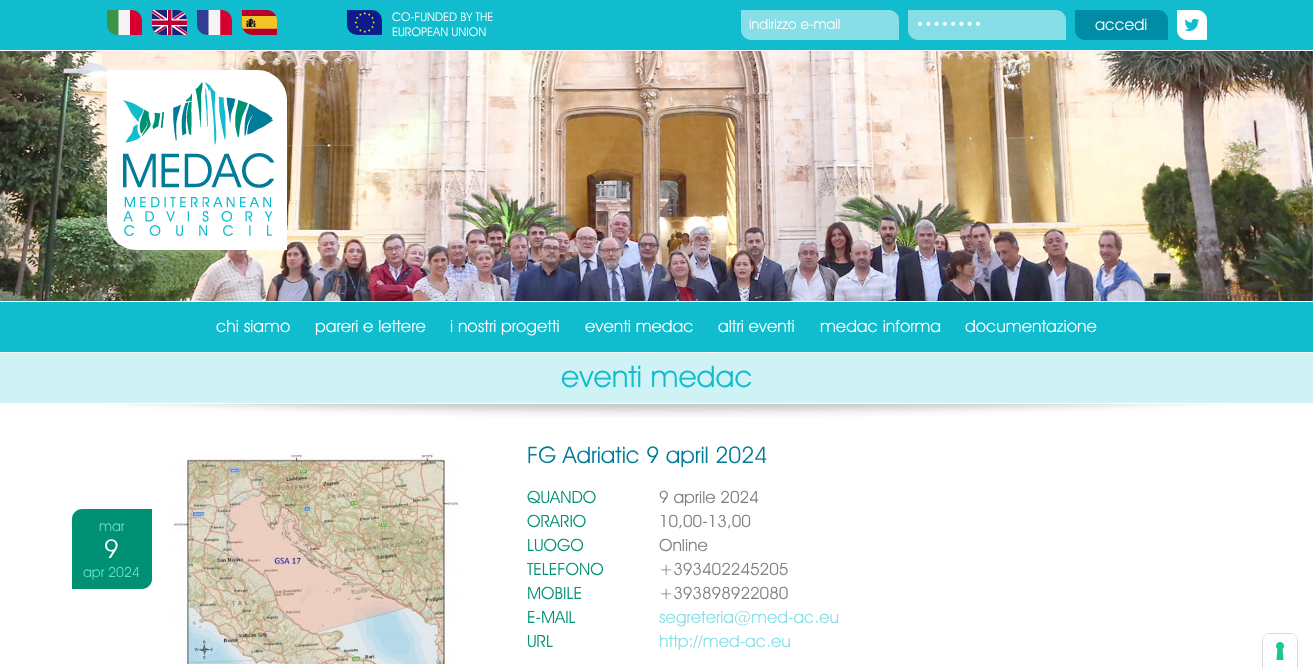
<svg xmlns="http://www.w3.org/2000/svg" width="1313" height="668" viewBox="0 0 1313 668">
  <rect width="100%" height="100%" fill="#ffffff"/>
  <rect x="0" y="0" width="1313" height="50" fill="#10bccd"/>
  <image x="107" y="10" width="35" height="25" href="img1.png"/>
  <image x="152" y="10" width="35" height="25" href="img2.png"/>
  <image x="197" y="10" width="35" height="25" href="img3.png"/>
  <image x="242" y="10" width="35" height="25" href="img4.png"/>
  <image x="347" y="10" width="35" height="25" href="img5.png"/>
  <text x="392" y="21" font-family="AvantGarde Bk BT" font-size="12" fill="#ffffff">CO-FUNDED BY THE</text>
  <text x="392" y="36" font-family="AvantGarde Bk BT" font-size="12" fill="#ffffff">EUROPEAN UNION</text>
  <path d="M741 10H889C894.5 10 899 14.5 899 20V40H751C745.5 40 741 35.5 741 30Z" fill="#88dee6"/>
  <text x="749" y="29" font-family="AvantGarde Bk BT" font-size="14" fill="#ffffff">indirizzo e-mail</text>
  <path d="M908 10H1056C1061.5 10 1066 14.5 1066 20V40H918C912.5 40 908 35.5 908 30Z" fill="#88dee6"/>
  <text x="916" y="29" font-family="AvantGarde Bk BT" font-size="14" fill="#ffffff">••••••••</text>
  <path d="M1075 10H1158C1163.5 10 1168 14.5 1168 20V40H1085C1079.5 40 1075 35.5 1075 30Z" fill="#018ba5"/>
  <text x="1095" y="30" font-family="AvantGarde Bk BT" font-size="16" fill="#ffffff">accedi</text>
  <path d="M1177 10H1197C1202.5 10 1207 14.5 1207 20V40H1187C1181.5 40 1177 35.5 1177 30Z" fill="#ffffff"/>
  <image x="1184" y="18" width="16" height="13" href="img6.png"/>
  <image x="0" y="51" width="1313" height="250" href="img8.png"/>
  <path d="M107 70H257C273.5 70 287 83.5 287 100V250H137C120.5 250 107 236.5 107 220Z" fill="#ffffff"/>
  <image x="123" y="82" width="152" height="154" href="img7.png"/>
  <rect x="0" y="302" width="1313" height="50" fill="#10bccd"/>
  <text x="216" y="332" font-family="AvantGarde Bk BT" font-size="17" fill="#ffffff">chi siamo</text>
  <text x="315" y="332" font-family="AvantGarde Bk BT" font-size="17" fill="#ffffff">pareri e lettere</text>
  <text x="450" y="332" font-family="AvantGarde Bk BT" font-size="17" fill="#ffffff">i nostri progetti</text>
  <text x="585" y="332" font-family="AvantGarde Bk BT" font-size="17" fill="#ffffff">eventi medac</text>
  <text x="718" y="332" font-family="AvantGarde Bk BT" font-size="17" fill="#ffffff">altri eventi</text>
  <text x="820" y="332" font-family="AvantGarde Bk BT" font-size="17" fill="#ffffff">medac informa</text>
  <text x="965" y="332" font-family="AvantGarde Bk BT" font-size="17" fill="#ffffff">documentazione</text>
  <rect x="0" y="353" width="1313" height="50" fill="#cff2f5"/>
  <text x="561" y="387" font-family="AvantGarde Bk BT" font-size="30" fill="#10bccd">eventi medac</text>
  <image x="105" y="404" width="1124" height="13" href="img9.png"/>
  <image x="171" y="452" width="288" height="212" href="img10.png"/>
  <text x="527" y="463" font-family="AvantGarde Bk BT" font-size="23" fill="#007b98">FG Adriatic 9 april 2024</text>
  <path d="M82 509H152V579C152 584.5 147.5 589 142 589H72V519C72 513.5 76.5 509 82 509Z" fill="#009174"/>
  <text x="99" y="531" font-family="AvantGarde Bk BT" font-size="14" fill="#6addc6">mar</text>
  <text x="104" y="558" font-family="AvantGarde Bk BT" font-size="26" fill="#ffffff">9</text>
  <text x="83" y="577" font-family="AvantGarde Bk BT" font-size="14" fill="#6addc6">apr 2024</text>
  <text x="527" y="503" font-family="AvantGarde Bk BT" font-size="17" fill="#009174">QUANDO</text>
  <text x="659" y="503" font-family="AvantGarde Bk BT" font-size="17" fill="#7d7e7e">9 aprile 2024</text>
  <text x="527" y="527" font-family="AvantGarde Bk BT" font-size="17" fill="#009174">ORARIO</text>
  <text x="659" y="527" font-family="AvantGarde Bk BT" font-size="17" fill="#7d7e7e">10,00-13,00</text>
  <text x="527" y="551" font-family="AvantGarde Bk BT" font-size="17" fill="#009174">LUOGO</text>
  <text x="659" y="551" font-family="AvantGarde Bk BT" font-size="17" fill="#7d7e7e">Online</text>
  <text x="527" y="575" font-family="AvantGarde Bk BT" font-size="17" fill="#009174">TELEFONO</text>
  <text x="659" y="575" font-family="AvantGarde Bk BT" font-size="17" fill="#7d7e7e">+393402245205</text>
  <text x="527" y="599" font-family="AvantGarde Bk BT" font-size="17" fill="#009174">MOBILE</text>
  <text x="659" y="599" font-family="AvantGarde Bk BT" font-size="17" fill="#7d7e7e">+393898922080</text>
  <text x="527" y="623" font-family="AvantGarde Bk BT" font-size="17" fill="#009174">E-MAIL</text>
  <text x="659" y="623" font-family="AvantGarde Bk BT" font-size="17" fill="#88dee6">segreteria@med-ac.eu</text>
  <text x="527" y="647" font-family="AvantGarde Bk BT" font-size="17" fill="#009174">URL</text>
  <text x="659" y="647" font-family="AvantGarde Bk BT" font-size="17" fill="#88dee6">http://med-ac.eu</text>
  <path d="M1269 633.5H1291C1294.5 633.5 1297.5 636.5 1297.5 640V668.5H1262.5V640C1262.5 636.5 1265.5 633.5 1269 633.5Z" fill="none" stroke="#d9d9d9"/>
  <path d="M1269 634H1291C1294.5 634 1297 636.5 1297 640V668H1263V640C1263 636.5 1265.5 634 1269 634Z" fill="#ffffff"/>
  <image x="1276" y="642" width="8" height="18" href="img11.png"/>
</svg>
